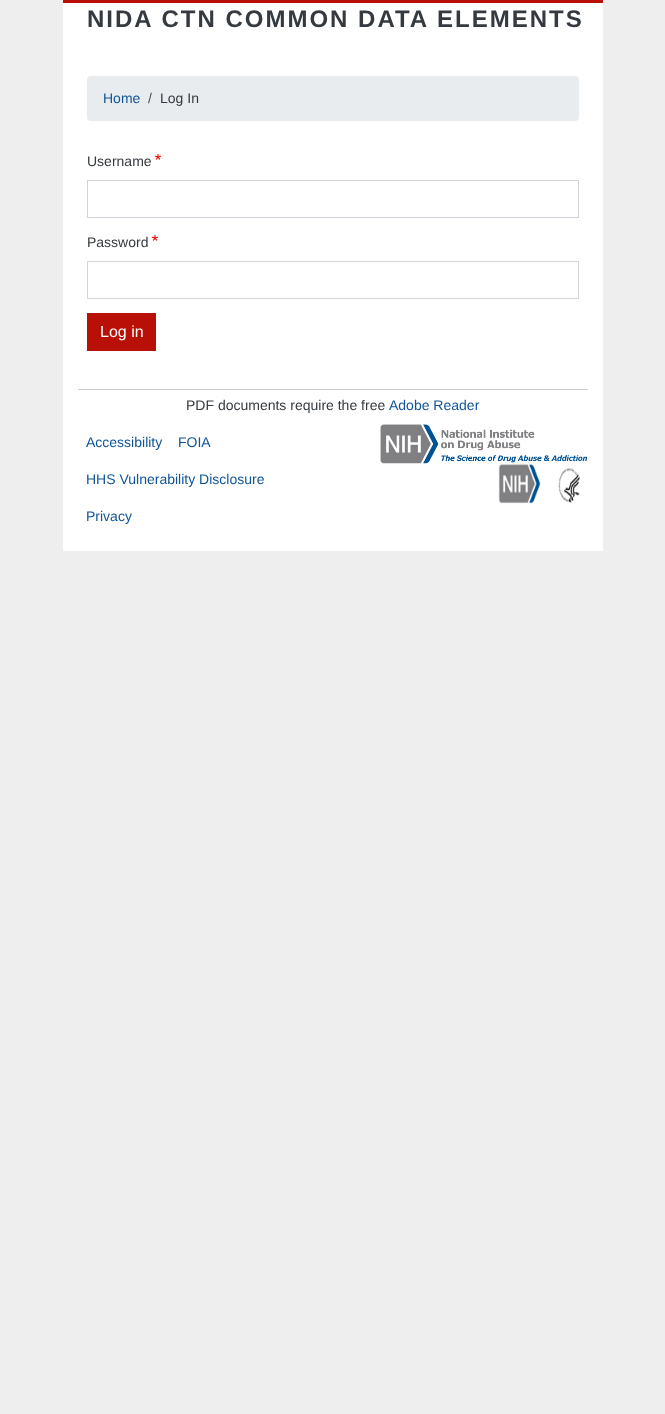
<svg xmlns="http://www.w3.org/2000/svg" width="665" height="1414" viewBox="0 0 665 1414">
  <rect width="100%" height="100%" fill="#eeeeee"/>
  <rect x="63" y="0" width="540" height="3" fill="#b81007"/>
  <rect x="63" y="3" width="540" height="548" fill="#ffffff"/>
  <text x="87" y="27" font-family="Liberation Sans" font-size="24" font-weight="bold" letter-spacing="2" fill="#343a40">NIDA CTN COMMON DATA ELEMENTS</text>
  <rect x="87" y="76" width="492" height="45" rx="4" fill="#e9ecef"/>
  <text x="103" y="103" font-family="Liberation Sans" font-size="14" fill="#105497">Home</text>
  <text x="148" y="103" font-family="Liberation Sans" font-size="14" fill="#495057">/</text>
  <text x="160" y="103" font-family="Liberation Sans" font-size="14" fill="#343a40">Log In</text>
  <text x="87" y="166" font-family="Liberation Sans" font-size="14" fill="#343a40">Username</text>
  <image x="155" y="154" width="6" height="6" href="img1.png"/>
  <rect x="87.5" y="180.5" width="491" height="37" fill="none" stroke="#ced4da"/>
  <text x="87" y="247" font-family="Liberation Sans" font-size="14" fill="#343a40">Password</text>
  <image x="152" y="235" width="6" height="6" href="img1.png"/>
  <rect x="87.5" y="261.5" width="491" height="37" fill="none" stroke="#ced4da"/>
  <rect x="87" y="313" width="69" height="38" fill="#b81007"/>
  <text x="100" y="337" font-family="Liberation Sans" font-size="16" fill="#ffffff">Log in</text>
  <rect x="78" y="389" width="510" height="1" fill="#cccccc"/>
  <text x="186" y="410" font-family="Liberation Sans" font-size="14" fill="#343a40">PDF documents require the free</text>
  <text x="389" y="410" font-family="Liberation Sans" font-size="14" fill="#105497">Adobe Reader</text>
  <text x="86" y="447" font-family="Liberation Sans" font-size="14" fill="#105497">Accessibility</text>
  <text x="178" y="447" font-family="Liberation Sans" font-size="14" fill="#105497">FOIA</text>
  <text x="86" y="484" font-family="Liberation Sans" font-size="14" fill="#105497">HHS Vulnerability Disclosure</text>
  <text x="86" y="521" font-family="Liberation Sans" font-size="14" fill="#105497">Privacy</text>
  <image x="380" y="424" width="208" height="40" href="img2.png"/>
  <image x="498" y="464" width="43" height="40" href="img3.png"/>
  <image x="558" y="467" width="22" height="36" href="img4.png"/>
</svg>
